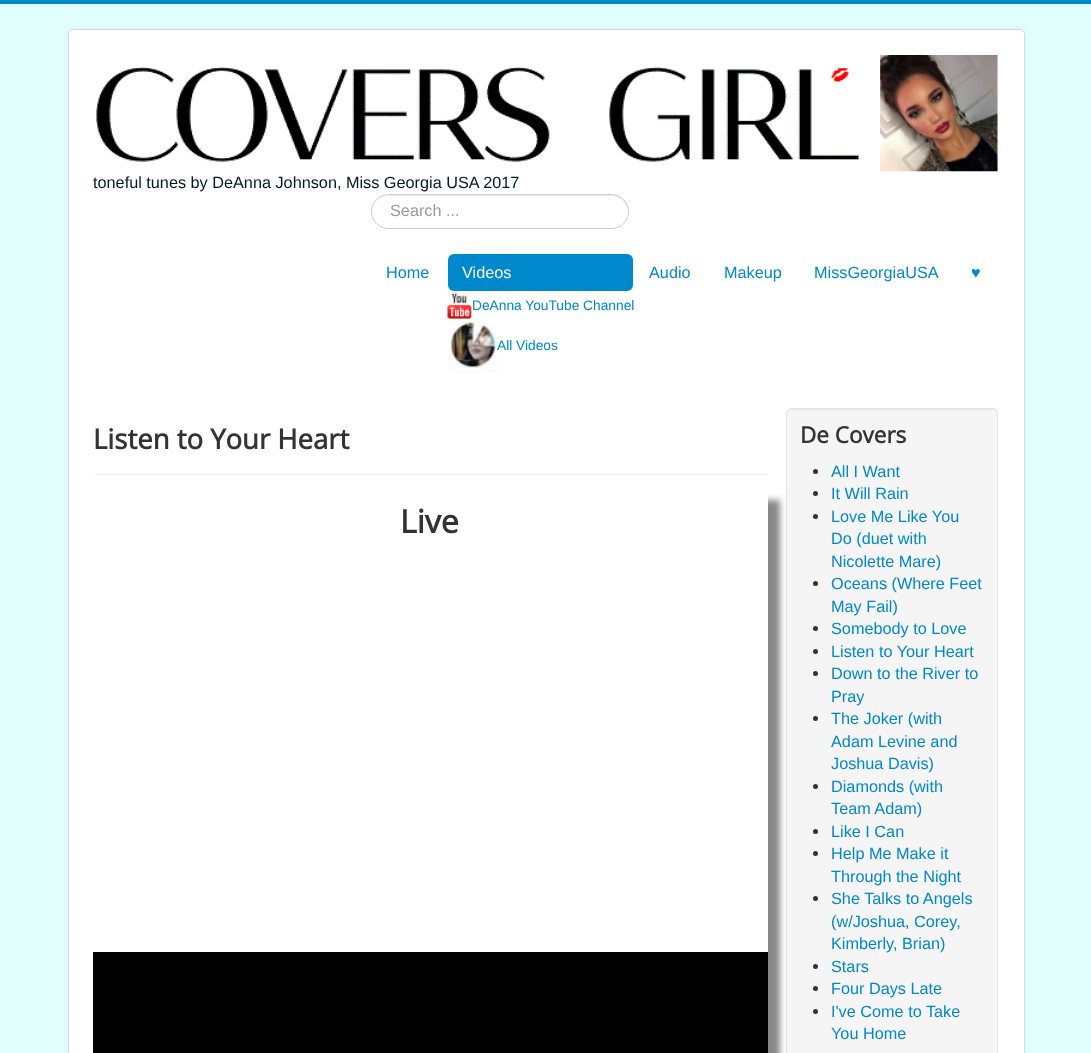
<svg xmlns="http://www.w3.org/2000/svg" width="1091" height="1053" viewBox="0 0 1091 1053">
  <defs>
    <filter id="blur1" x="-50%" y="-200%" width="200%" height="500%"><feGaussianBlur stdDeviation="4"/></filter>
    <clipPath id="clip1"><path d="M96 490H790V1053H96ZM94 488H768V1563H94Z" clip-rule="evenodd"/></clipPath>
    <filter id="blur2" x="-50%" y="-200%" width="200%" height="500%"><feGaussianBlur stdDeviation="3"/></filter>
  </defs>
  <rect width="100%" height="100%" fill="#e0fffd"/>
  <rect x="0" y="0" width="1091" height="4" fill="#0088cc"/>
  <rect x="68" y="29" width="957" height="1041" rx="5" fill="#000000" fill-opacity="0.05" filter="url(#blur1)"/>
  <rect x="68" y="29" width="957" height="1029" rx="5" fill="#ffffff"/>
  <rect x="68.5" y="29.5" width="956" height="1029" rx="4.5" fill="none" stroke="#000000" stroke-opacity="0.15"/>
  <image x="96" y="55" width="902" height="117" href="img1.png"/>
  <text x="93" y="188" font-family="Liberation Sans" font-size="16.25" fill="#001a27">toneful tunes by DeAnna Johnson, Miss Georgia USA 2017</text>
  <path d="M389 196H611C620 196 628 204 628 212C628 202 621 195 612 195H390C384 195 378 198 375 203C379 199 384 196 389 196Z" fill="#ececec"/>
  <rect x="371.5" y="194.5" width="257" height="34" rx="17" fill="none" stroke="#cccccc"/>
  <text x="390" y="216" font-family="Liberation Sans" font-size="16.25" fill="#999999">Search ...</text>
  <text x="386" y="278" font-family="Liberation Sans" font-size="16.25" fill="#0088cc">Home</text>
  <rect x="448" y="254" width="185" height="37" rx="6" fill="#0088cc"/>
  <text x="462" y="278" font-family="Liberation Sans" font-size="16.25" fill="#ffffff">Videos</text>
  <image x="447" y="293" width="25" height="26" href="img2.png"/>
  <text x="472" y="310" font-family="Liberation Sans" font-size="13.75" fill="#0088cc">DeAnna YouTube Channel</text>
  <image x="447" y="318" width="51" height="55" href="img3.png"/>
  <text x="497" y="350" font-family="Liberation Sans" font-size="13.75" fill="#0088cc">All Videos</text>
  <text x="649" y="278" font-family="Liberation Sans" font-size="16.25" fill="#0088cc">Audio</text>
  <text x="724" y="278" font-family="Liberation Sans" font-size="16.25" fill="#0088cc">Makeup</text>
  <text x="814" y="278" font-family="Liberation Sans" font-size="16.25" fill="#0088cc">MissGeorgiaUSA</text>
  <text x="971" y="278" font-family="Liberation Sans" font-size="16.25" fill="#0088cc">♥</text>
  <rect x="94" y="474" width="674" height="1" fill="#eeeeee"/>
  <text x="93" y="449" font-family="Open Sans" font-size="27.5" font-weight="bold" fill="#333333">Listen to Your Heart</text>
  <g clip-path="url(#clip1)">
    <rect x="106" y="500" width="674" height="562" fill="#888888" filter="url(#blur2)"/>
  </g>
  <text x="400" y="533" font-family="Open Sans" font-size="32" font-weight="bold" fill="#333333">Live</text>
  <rect x="93" y="952" width="675" height="101" fill="#000000"/>
  <rect x="786" y="408" width="212" height="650" rx="5" fill="#f5f5f5"/>
  <path d="M791 410H992C995 410 996 412 996 414V413C996 411 994 409 992 409H792C790 409 788 411 788 413V414C788 412 789 410 791 410Z" fill="#e9e9e9"/>
  <rect x="786.5" y="408.5" width="211" height="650" rx="4.5" fill="none" stroke="#e3e3e3"/>
  <rect x="800" y="453" width="184" height="1" fill="#eeeeee"/>
  <text x="800" y="443" font-family="Open Sans" font-size="22.5" font-weight="bold" fill="#333333">De Covers</text>
  <circle cx="815.5" cy="471.5" r="2.5" fill="#333333"/>
  <text x="831" y="477" font-family="Liberation Sans" font-size="16.25" fill="#0088cc">All I Want</text>
  <circle cx="815.5" cy="493.5" r="2.5" fill="#333333"/>
  <text x="831" y="499" font-family="Liberation Sans" font-size="16.25" fill="#0088cc">It Will Rain</text>
  <circle cx="815.5" cy="516.5" r="2.5" fill="#333333"/>
  <text x="831" y="522" font-family="Liberation Sans" font-size="16.25" fill="#0088cc">Love Me Like You</text>
  <text x="831" y="544" font-family="Liberation Sans" font-size="16.25" fill="#0088cc">Do (duet with</text>
  <text x="831" y="567" font-family="Liberation Sans" font-size="16.25" fill="#0088cc">Nicolette Mare)</text>
  <circle cx="815.5" cy="583.5" r="2.5" fill="#333333"/>
  <text x="831" y="589" font-family="Liberation Sans" font-size="16.25" fill="#0088cc">Oceans (Where Feet</text>
  <text x="831" y="612" font-family="Liberation Sans" font-size="16.25" fill="#0088cc">May Fail)</text>
  <circle cx="815.5" cy="628.5" r="2.5" fill="#333333"/>
  <text x="831" y="634" font-family="Liberation Sans" font-size="16.25" fill="#0088cc">Somebody to Love</text>
  <circle cx="815.5" cy="651.5" r="2.5" fill="#333333"/>
  <text x="831" y="657" font-family="Liberation Sans" font-size="16.25" fill="#0088cc">Listen to Your Heart</text>
  <circle cx="815.5" cy="673.5" r="2.5" fill="#333333"/>
  <text x="831" y="679" font-family="Liberation Sans" font-size="16.25" fill="#0088cc">Down to the River to</text>
  <text x="831" y="702" font-family="Liberation Sans" font-size="16.25" fill="#0088cc">Pray</text>
  <circle cx="815.5" cy="718.5" r="2.5" fill="#333333"/>
  <text x="831" y="724" font-family="Liberation Sans" font-size="16.25" fill="#0088cc">The Joker (with</text>
  <text x="831" y="747" font-family="Liberation Sans" font-size="16.25" fill="#0088cc">Adam Levine and</text>
  <text x="831" y="769" font-family="Liberation Sans" font-size="16.25" fill="#0088cc">Joshua Davis)</text>
  <circle cx="815.5" cy="786.5" r="2.5" fill="#333333"/>
  <text x="831" y="792" font-family="Liberation Sans" font-size="16.25" fill="#0088cc">Diamonds (with</text>
  <text x="831" y="814" font-family="Liberation Sans" font-size="16.25" fill="#0088cc">Team Adam)</text>
  <circle cx="815.5" cy="831.5" r="2.5" fill="#333333"/>
  <text x="831" y="837" font-family="Liberation Sans" font-size="16.25" fill="#0088cc">Like I Can</text>
  <circle cx="815.5" cy="853.5" r="2.5" fill="#333333"/>
  <text x="831" y="859" font-family="Liberation Sans" font-size="16.25" fill="#0088cc">Help Me Make it</text>
  <text x="831" y="882" font-family="Liberation Sans" font-size="16.25" fill="#0088cc">Through the Night</text>
  <circle cx="815.5" cy="898.5" r="2.5" fill="#333333"/>
  <text x="831" y="904" font-family="Liberation Sans" font-size="16.25" fill="#0088cc">She Talks to Angels</text>
  <text x="831" y="927" font-family="Liberation Sans" font-size="16.25" fill="#0088cc">(w/Joshua, Corey,</text>
  <text x="831" y="949" font-family="Liberation Sans" font-size="16.25" fill="#0088cc">Kimberly, Brian)</text>
  <circle cx="815.5" cy="966.5" r="2.5" fill="#333333"/>
  <text x="831" y="972" font-family="Liberation Sans" font-size="16.25" fill="#0088cc">Stars</text>
  <circle cx="815.5" cy="988.5" r="2.5" fill="#333333"/>
  <text x="831" y="994" font-family="Liberation Sans" font-size="16.25" fill="#0088cc">Four Days Late</text>
  <circle cx="815.5" cy="1011.5" r="2.5" fill="#333333"/>
  <text x="831" y="1017" font-family="Liberation Sans" font-size="16.25" fill="#0088cc">I've Come to Take</text>
  <text x="831" y="1039" font-family="Liberation Sans" font-size="16.25" fill="#0088cc">You Home</text>
</svg>
